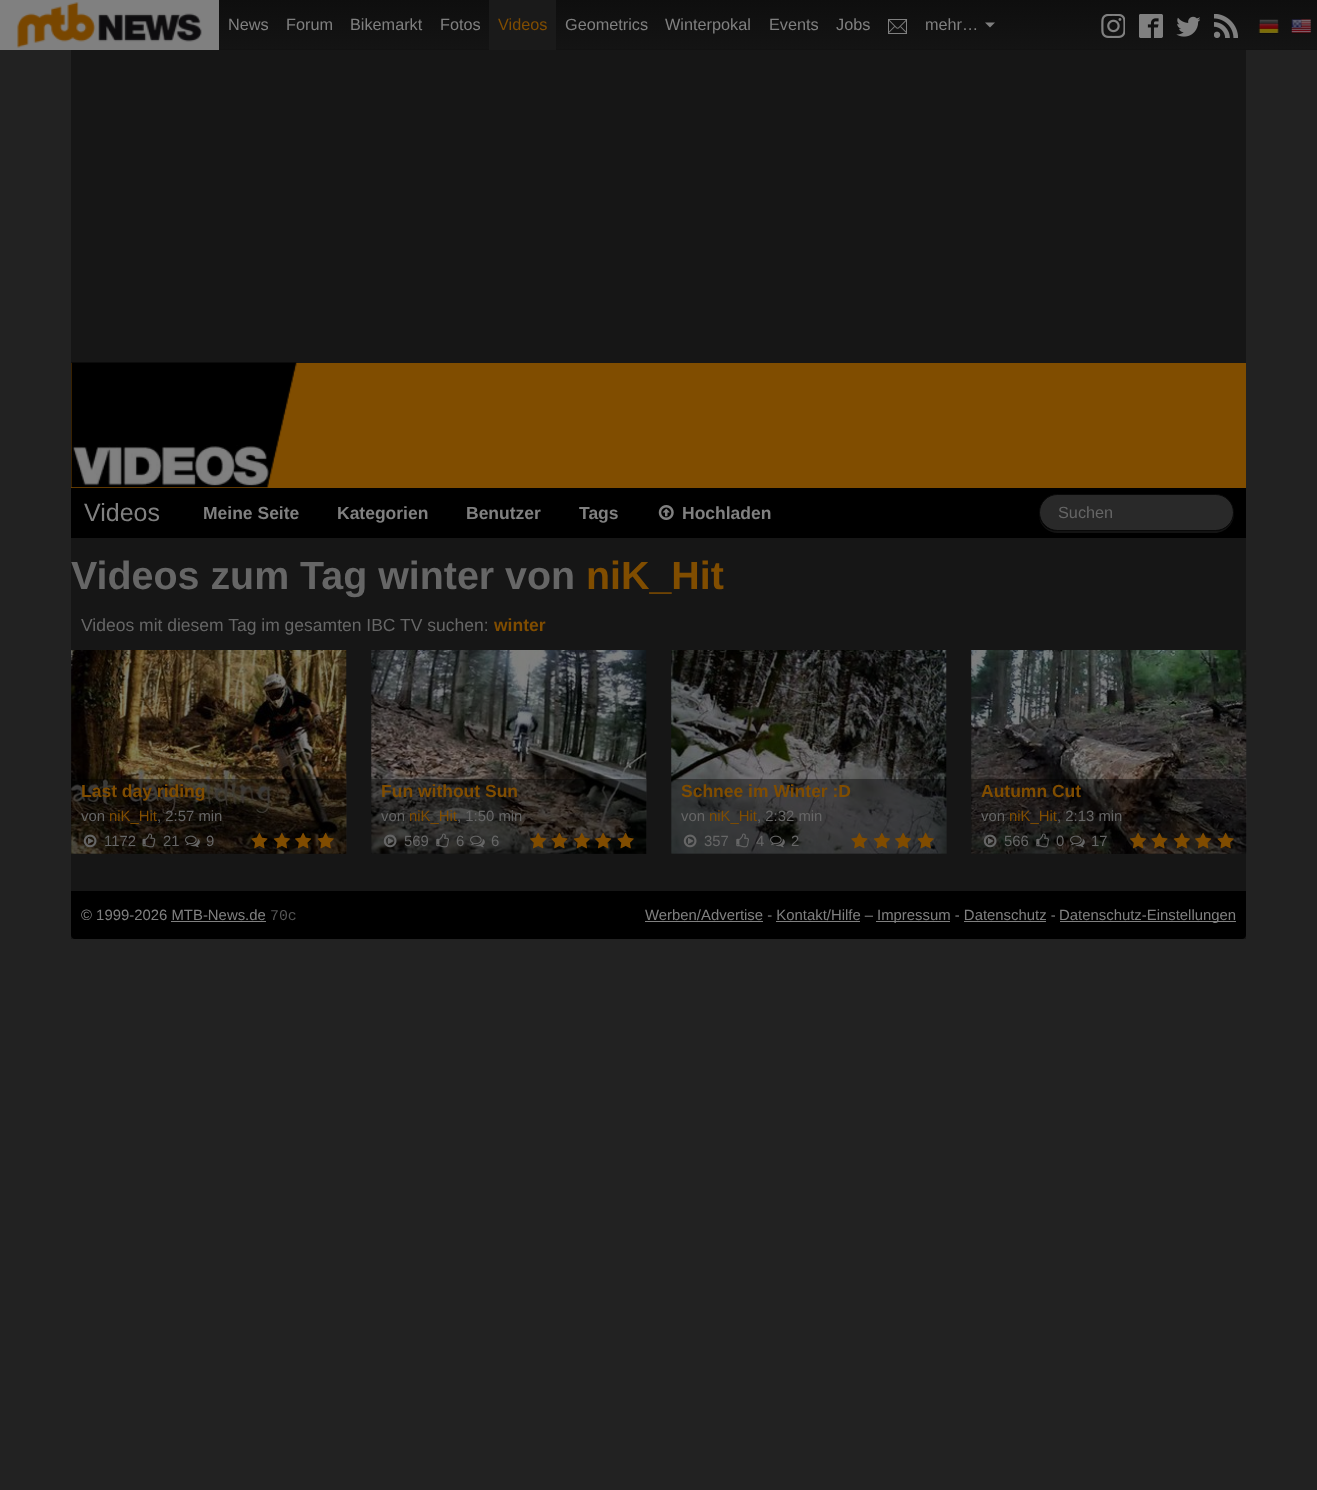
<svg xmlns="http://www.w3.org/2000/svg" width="1317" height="1490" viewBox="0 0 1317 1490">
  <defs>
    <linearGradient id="g1" gradientUnits="userSpaceOnUse" x1="659" y1="0" x2="659" y2="50"><stop offset="0" stop-color="#0e0e0e"/><stop offset="1" stop-color="#141414"/></linearGradient>
  </defs>
  <rect width="100%" height="100%" fill="#222222"/>
  <rect x="219" y="0" width="1098" height="49" fill="url(#g1)"/>
  <rect x="219" y="49" width="1098" height="1" fill="#121212"/>
  <rect x="0" y="0" width="219" height="50" fill="#808080"/>
  <image x="17" y="2" width="185" height="46" href="img1.png"/>
  <text x="228" y="30" font-family="Liberation Sans" font-size="16.25" fill="#808080">News</text>
  <text x="286" y="30" font-family="Liberation Sans" font-size="16.25" fill="#808080">Forum</text>
  <text x="350" y="30" font-family="Liberation Sans" font-size="16.25" fill="#808080">Bikemarkt</text>
  <text x="440" y="30" font-family="Liberation Sans" font-size="16.25" fill="#808080">Fotos</text>
  <rect x="489" y="0" width="67" height="50" fill="#1a1a1a"/>
  <text x="498" y="30" font-family="Liberation Sans" font-size="16.25" fill="#804d00">Videos</text>
  <text x="565" y="30" font-family="Liberation Sans" font-size="16.25" fill="#808080">Geometrics</text>
  <text x="665" y="30" font-family="Liberation Sans" font-size="16.25" fill="#808080">Winterpokal</text>
  <text x="769" y="30" font-family="Liberation Sans" font-size="16.25" fill="#808080">Events</text>
  <text x="836" y="30" font-family="Liberation Sans" font-size="16.25" fill="#808080">Jobs</text>
  <image x="888" y="19" width="20" height="15" href="img2.png"/>
  <text x="925" y="30" font-family="Liberation Sans" font-size="16.25" fill="#808080">mehr…</text>
  <path d="M985 22.5H995L990 27.5Z" fill="#808080"/>
  <image x="1101" y="14" width="24" height="24" href="img3.png"/>
  <image x="1139" y="14" width="24" height="24" href="img4.png"/>
  <image x="1176" y="16" width="24" height="21" href="img5.png"/>
  <image x="1214" y="14" width="24" height="24" href="img6.png"/>
  <image x="1258" y="19" width="21" height="15" href="img7.png"/>
  <image x="1291" y="19" width="20" height="15" href="img8.png"/>
  <rect x="71" y="50" width="1175" height="889" fill="#161616"/>
  <rect x="71" y="363" width="1175" height="125" fill="#804d00"/>
  <image x="71" y="362" width="226" height="126" href="img9.png"/>
  <rect x="71" y="488" width="1175" height="50" fill="#000000"/>
  <text x="84" y="521" font-family="Liberation Sans" font-size="25" fill="#808080">Videos</text>
  <text x="203" y="519" font-family="Liberation Sans" font-size="17.5" font-weight="bold" fill="#808080">Meine Seite</text>
  <text x="337" y="519" font-family="Liberation Sans" font-size="17.5" font-weight="bold" fill="#808080">Kategorien</text>
  <text x="466" y="519" font-family="Liberation Sans" font-size="17.5" font-weight="bold" fill="#808080">Benutzer</text>
  <text x="579" y="519" font-family="Liberation Sans" font-size="17.5" font-weight="bold" fill="#808080">Tags</text>
  <image x="658" y="505" width="16" height="15" href="img10.png"/>
  <text x="682" y="519" font-family="Liberation Sans" font-size="17.5" font-weight="bold" fill="#808080">Hochladen</text>
  <path d="M1039 516C1040 526 1048 533 1058 533H1215C1225 533 1234 524 1234 514V510V512C1234 523 1225 531 1215 531H1058C1048 531 1041 525 1039 516Z" fill="#131313"/>
  <rect x="1039.5" y="494.5" width="194" height="36" rx="18" fill="#292929" stroke="#090909"/>
  <text x="1058" y="518" font-family="Liberation Sans" font-size="16.25" fill="#666666">Suchen</text>
  <text x="71" y="589" font-family="Liberation Sans" font-size="39.4" font-weight="bold" fill="#666666">Videos zum Tag winter von</text>
  <text x="586" y="589" font-family="Liberation Sans" font-size="39.4" font-weight="bold" fill="#804d00">niK_Hit</text>
  <text x="81" y="631" font-family="Liberation Sans" font-size="17.5" fill="#666666">Videos mit diesem Tag im gesamten IBC TV suchen:</text>
  <text x="494" y="631" font-family="Liberation Sans" font-size="17.5" font-weight="bold" fill="#804d00">winter</text>
  <image x="71" y="650" width="276" height="204" href="img11.png"/>
  <rect x="71" y="779" width="275" height="75" fill="#000000" fill-opacity="0.4"/>
  <text x="81" y="797" font-family="Liberation Sans" font-size="17.5" font-weight="bold" fill="#804d00">Last day riding</text>
  <text x="81" y="821" font-family="Liberation Sans" font-size="14.9" fill="#666666">von</text>
  <text x="109" y="821" font-family="Liberation Sans" font-size="14.9" fill="#804d00">niK_Hit</text>
  <text x="157" y="821" font-family="Liberation Sans" font-size="14.9" fill="#666666">, 2:57 min</text>
  <image x="83" y="834" width="14" height="14" href="img12.png"/>
  <text x="104" y="846" font-family="Liberation Sans" font-size="14.9" fill="#666666">1172</text>
  <image x="142" y="833" width="14" height="15" href="img13.png"/>
  <text x="163" y="846" font-family="Liberation Sans" font-size="14.9" fill="#666666">21</text>
  <image x="185" y="835" width="15" height="13" href="img14.png"/>
  <text x="206" y="846" font-family="Liberation Sans" font-size="14.9" fill="#666666">9</text>
  <image x="251" y="832" width="17" height="17" href="img15.png"/>
  <image x="273" y="832" width="17" height="17" href="img16.png"/>
  <image x="295" y="832" width="17" height="17" href="img17.png"/>
  <image x="317" y="832" width="17" height="17" href="img18.png"/>
  <image x="371" y="650" width="276" height="204" href="img19.png"/>
  <rect x="371" y="779" width="275" height="75" fill="#000000" fill-opacity="0.4"/>
  <text x="381" y="797" font-family="Liberation Sans" font-size="17.5" font-weight="bold" fill="#804d00">Fun without Sun</text>
  <text x="381" y="821" font-family="Liberation Sans" font-size="14.9" fill="#666666">von</text>
  <text x="409" y="821" font-family="Liberation Sans" font-size="14.9" fill="#804d00">niK_Hit</text>
  <text x="457" y="821" font-family="Liberation Sans" font-size="14.9" fill="#666666">, 1:50 min</text>
  <image x="383" y="834" width="14" height="14" href="img20.png"/>
  <text x="404" y="846" font-family="Liberation Sans" font-size="14.9" fill="#666666">569</text>
  <image x="436" y="833" width="13" height="15" href="img21.png"/>
  <text x="456" y="846" font-family="Liberation Sans" font-size="14.9" fill="#666666">6</text>
  <image x="470" y="835" width="15" height="13" href="img22.png"/>
  <text x="491" y="846" font-family="Liberation Sans" font-size="14.9" fill="#666666">6</text>
  <image x="530" y="832" width="17" height="17" href="img23.png"/>
  <image x="551" y="832" width="17" height="17" href="img24.png"/>
  <image x="573" y="832" width="17" height="17" href="img25.png"/>
  <image x="595" y="832" width="17" height="17" href="img26.png"/>
  <image x="617" y="832" width="17" height="17" href="img27.png"/>
  <image x="671" y="650" width="276" height="204" href="img28.png"/>
  <rect x="671" y="779" width="275" height="75" fill="#000000" fill-opacity="0.4"/>
  <text x="681" y="797" font-family="Liberation Sans" font-size="17.5" font-weight="bold" fill="#804d00">Schnee im Winter :D</text>
  <text x="681" y="821" font-family="Liberation Sans" font-size="14.9" fill="#666666">von</text>
  <text x="709" y="821" font-family="Liberation Sans" font-size="14.9" fill="#804d00">niK_Hit</text>
  <text x="757" y="821" font-family="Liberation Sans" font-size="14.9" fill="#666666">, 2:32 min</text>
  <image x="683" y="834" width="14" height="14" href="img29.png"/>
  <text x="704" y="846" font-family="Liberation Sans" font-size="14.9" fill="#666666">357</text>
  <image x="736" y="833" width="13" height="15" href="img30.png"/>
  <text x="756" y="846" font-family="Liberation Sans" font-size="14.9" fill="#666666">4</text>
  <image x="770" y="835" width="15" height="13" href="img31.png"/>
  <text x="791" y="846" font-family="Liberation Sans" font-size="14.9" fill="#666666">2</text>
  <image x="851" y="832" width="17" height="17" href="img32.png"/>
  <image x="873" y="832" width="17" height="17" href="img33.png"/>
  <image x="895" y="832" width="17" height="17" href="img34.png"/>
  <image x="917" y="832" width="17" height="17" href="img35.png"/>
  <image x="971" y="650" width="276" height="204" href="img36.png"/>
  <rect x="971" y="779" width="275" height="75" fill="#000000" fill-opacity="0.4"/>
  <text x="981" y="797" font-family="Liberation Sans" font-size="17.5" font-weight="bold" fill="#804d00">Autumn Cut</text>
  <text x="981" y="821" font-family="Liberation Sans" font-size="14.9" fill="#666666">von</text>
  <text x="1009" y="821" font-family="Liberation Sans" font-size="14.9" fill="#804d00">niK_Hit</text>
  <text x="1057" y="821" font-family="Liberation Sans" font-size="14.9" fill="#666666">, 2:13 min</text>
  <image x="983" y="834" width="14" height="14" href="img37.png"/>
  <text x="1004" y="846" font-family="Liberation Sans" font-size="14.9" fill="#666666">566</text>
  <image x="1036" y="833" width="13" height="15" href="img38.png"/>
  <text x="1056" y="846" font-family="Liberation Sans" font-size="14.9" fill="#666666">0</text>
  <image x="1070" y="835" width="15" height="13" href="img39.png"/>
  <text x="1091" y="846" font-family="Liberation Sans" font-size="14.9" fill="#666666">17</text>
  <image x="1130" y="832" width="17" height="17" href="img40.png"/>
  <image x="1151" y="832" width="17" height="17" href="img41.png"/>
  <image x="1173" y="832" width="17" height="17" href="img42.png"/>
  <image x="1195" y="832" width="17" height="17" href="img43.png"/>
  <image x="1217" y="832" width="17" height="17" href="img44.png"/>
  <path d="M71 891H1246V935C1246 937 1244 939 1242 939H75C73 939 71 937 71 935Z" fill="#000000"/>
  <text x="81" y="920" font-family="Liberation Sans" font-size="14.9" fill="#808080">© 1999-2026 MTB-News.de</text>
  <text x="270" y="920" font-family="Liberation Mono" font-size="14.9" fill="#555555">70c</text>
  <rect x="171" y="921" width="95" height="1" fill="#808080"/>
  <text x="645" y="920" font-family="Liberation Sans" font-size="14.9" fill="#808080">Werben/Advertise - Kontakt/Hilfe –</text>
  <rect x="645" y="921" width="118" height="1" fill="#808080"/>
  <rect x="876" y="921" width="74" height="1" fill="#808080"/>
  <text x="877" y="920" font-family="Liberation Sans" font-size="14.9" fill="#808080">Impressum - Datenschutz -</text>
  <rect x="1060" y="921" width="176" height="1" fill="#808080"/>
  <text x="1059" y="920" font-family="Liberation Sans" font-size="14.9" fill="#808080">Datenschutz-Einstellungen</text>
  <rect x="776" y="921" width="84" height="1" fill="#808080"/>
  <rect x="964" y="921" width="82" height="1" fill="#808080"/>
</svg>
